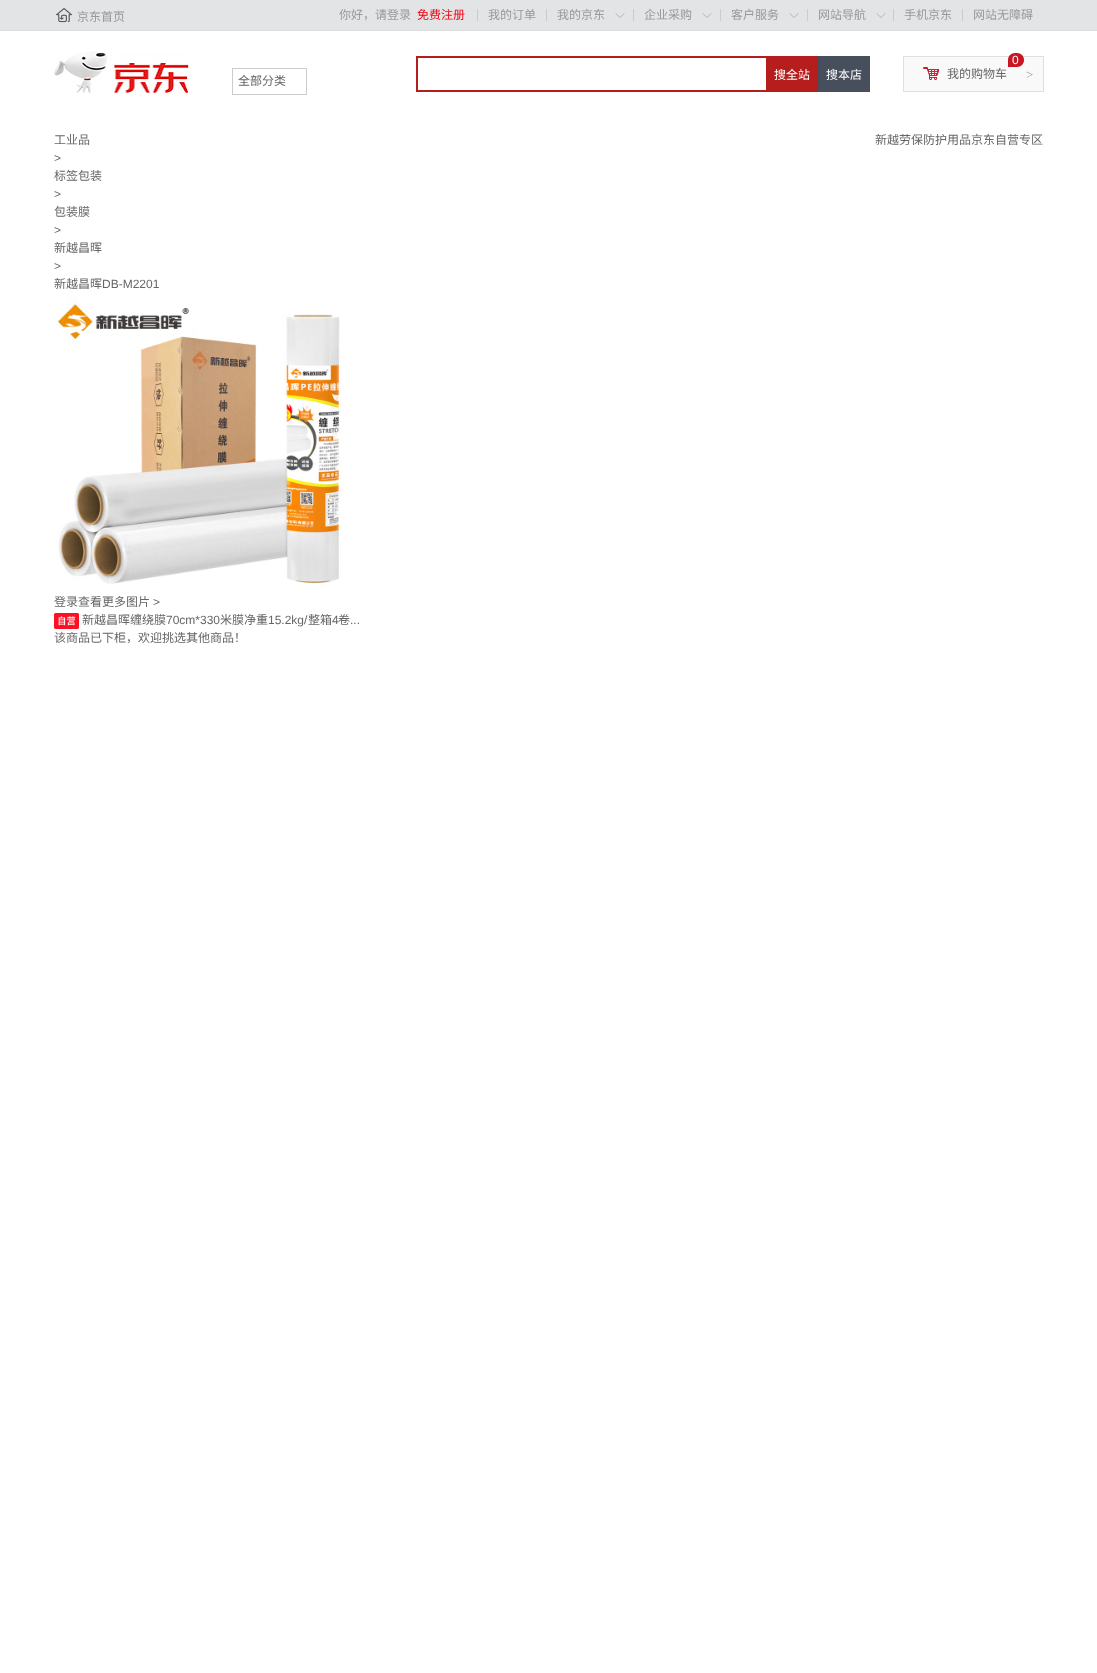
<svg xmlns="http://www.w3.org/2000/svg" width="1097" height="1673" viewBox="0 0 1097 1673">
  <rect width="100%" height="100%" fill="#ffffff"/>
  <rect x="0" y="0" width="1097" height="30" fill="#e3e4e5"/>
  <rect x="0" y="30" width="1097" height="1" fill="#dddddd"/>
  <image x="56" y="8" width="16" height="15" href="img1.png"/>
  <text x="77" y="21" font-family="Noto Sans CJK SC" font-size="12" fill="#999999">京东首页</text>
  <text x="339" y="19" font-family="Noto Sans CJK SC" font-size="12" fill="#999999">你好，请登录</text>
  <text x="417" y="19" font-family="Noto Sans CJK SC" font-size="12" fill="#f30213">免费注册</text>
  <rect x="477" y="9" width="1" height="12" fill="#cccccc"/>
  <text x="488" y="19" font-family="Noto Sans CJK SC" font-size="12" fill="#999999">我的订单</text>
  <rect x="546" y="9" width="1" height="12" fill="#cccccc"/>
  <text x="557" y="19" font-family="Noto Sans CJK SC" font-size="12" fill="#999999">我的京东</text>
  <image x="615" y="13" width="10" height="5" href="img2.png"/>
  <rect x="633" y="9" width="1" height="12" fill="#cccccc"/>
  <text x="644" y="19" font-family="Noto Sans CJK SC" font-size="12" fill="#999999">企业采购</text>
  <image x="702" y="13" width="10" height="5" href="img2.png"/>
  <rect x="720" y="9" width="1" height="12" fill="#cccccc"/>
  <text x="731" y="19" font-family="Noto Sans CJK SC" font-size="12" fill="#999999">客户服务</text>
  <image x="789" y="13" width="10" height="5" href="img2.png"/>
  <rect x="807" y="9" width="1" height="12" fill="#cccccc"/>
  <text x="818" y="19" font-family="Noto Sans CJK SC" font-size="12" fill="#999999">网站导航</text>
  <image x="876" y="13" width="10" height="5" href="img2.png"/>
  <rect x="893" y="9" width="1" height="12" fill="#cccccc"/>
  <text x="904" y="19" font-family="Noto Sans CJK SC" font-size="12" fill="#999999">手机京东</text>
  <rect x="962" y="9" width="1" height="12" fill="#cccccc"/>
  <text x="973" y="19" font-family="Noto Sans CJK SC" font-size="12" fill="#999999">网站无障碍</text>
  <image x="54" y="51" width="135" height="42" href="img3.png"/>
  <rect x="232.5" y="68.5" width="74" height="26" fill="none" stroke="#cccccc"/>
  <text x="238" y="85" font-family="Noto Sans CJK SC" font-size="12" fill="#666666">全部分类</text>
  <rect x="416" y="56" width="350" height="2" fill="#b61d1d"/>
  <rect x="416" y="90" width="350" height="2" fill="#b61d1d"/>
  <rect x="416" y="56" width="2" height="36" fill="#b61d1d"/>
  <rect x="766" y="56" width="52" height="36" fill="#b61d1d"/>
  <text x="774" y="79" font-family="Noto Sans CJK SC" font-size="12" fill="#ffffff">搜全站</text>
  <rect x="818" y="56" width="52" height="36" fill="#474e5c"/>
  <text x="826" y="79" font-family="Noto Sans CJK SC" font-size="12" fill="#ffffff">搜本店</text>
  <rect x="903.5" y="56.5" width="140" height="35" fill="#f9f9f9" stroke="#dfdfdf"/>
  <path d="M1015 53H1017C1021 53 1024 56 1024 60C1024 64 1021 67 1017 67H1008V60C1008 56 1011 53 1015 53Z" fill="#c81623"/>
  <text x="1012" y="64" font-family="Liberation Sans" font-size="12" fill="#ffffff">0</text>
  <image x="923" y="67" width="16" height="13" href="img4.png"/>
  <text x="947" y="78" font-family="Noto Sans CJK SC" font-size="12" fill="#666666">我的购物车</text>
  <text x="1026" y="79" font-family="Liberation Serif" font-size="13" fill="#999999">&gt;</text>
  <text x="54" y="144" font-family="Noto Sans CJK SC" font-size="12" fill="#666666">工业品</text>
  <text x="54" y="162" font-family="Liberation Sans" font-size="12" fill="#666666">&gt;</text>
  <text x="54" y="180" font-family="Noto Sans CJK SC" font-size="12" fill="#666666">标签包装</text>
  <text x="54" y="198" font-family="Liberation Sans" font-size="12" fill="#666666">&gt;</text>
  <text x="54" y="216" font-family="Noto Sans CJK SC" font-size="12" fill="#666666">包装膜</text>
  <text x="54" y="234" font-family="Liberation Sans" font-size="12" fill="#666666">&gt;</text>
  <text x="54" y="252" font-family="Noto Sans CJK SC" font-size="12" fill="#666666">新越昌晖</text>
  <text x="54" y="270" font-family="Liberation Sans" font-size="12" fill="#666666">&gt;</text>
  <text x="54" y="288" font-family="Noto Sans CJK SC" font-size="12" fill="#666666">新越昌晖</text>
  <text x="102" y="288" font-family="Liberation Sans" font-size="12" fill="#666666">DB-M2201</text>
  <text x="875" y="144" font-family="Noto Sans CJK SC" font-size="12" fill="#666666">新越劳保防护用品京东自营专区</text>
  <image x="56" y="294" width="285" height="290" href="img5.png"/>
  <text x="54" y="606" font-family="Noto Sans CJK SC" font-size="12" fill="#666666">登录查看更多图片</text>
  <text x="153" y="606" font-family="Liberation Sans" font-size="12" fill="#666666">&gt;</text>
  <image x="54" y="613" width="25" height="16" href="img6.png"/>
  <text x="82" y="624" font-family="Noto Sans CJK SC" font-size="12" fill="#666666">新越昌晖缠绕膜</text>
  <text x="166" y="624" font-family="Liberation Sans" font-size="12" fill="#666666">70cm*330</text>
  <text x="220" y="624" font-family="Noto Sans CJK SC" font-size="12" fill="#666666">米膜净重</text>
  <text x="268" y="624" font-family="Liberation Sans" font-size="12" fill="#666666">15.2kg/</text>
  <text x="308" y="624" font-family="Noto Sans CJK SC" font-size="12" fill="#666666">整箱</text>
  <text x="332" y="624" font-family="Liberation Sans" font-size="12" fill="#666666">4</text>
  <text x="338" y="624" font-family="Noto Sans CJK SC" font-size="12" fill="#666666">卷</text>
  <text x="350" y="624" font-family="Liberation Sans" font-size="12" fill="#666666">...</text>
  <text x="54" y="642" font-family="Noto Sans CJK SC" font-size="12" fill="#666666">该商品已下柜，欢迎挑选其他商品！</text>
</svg>
